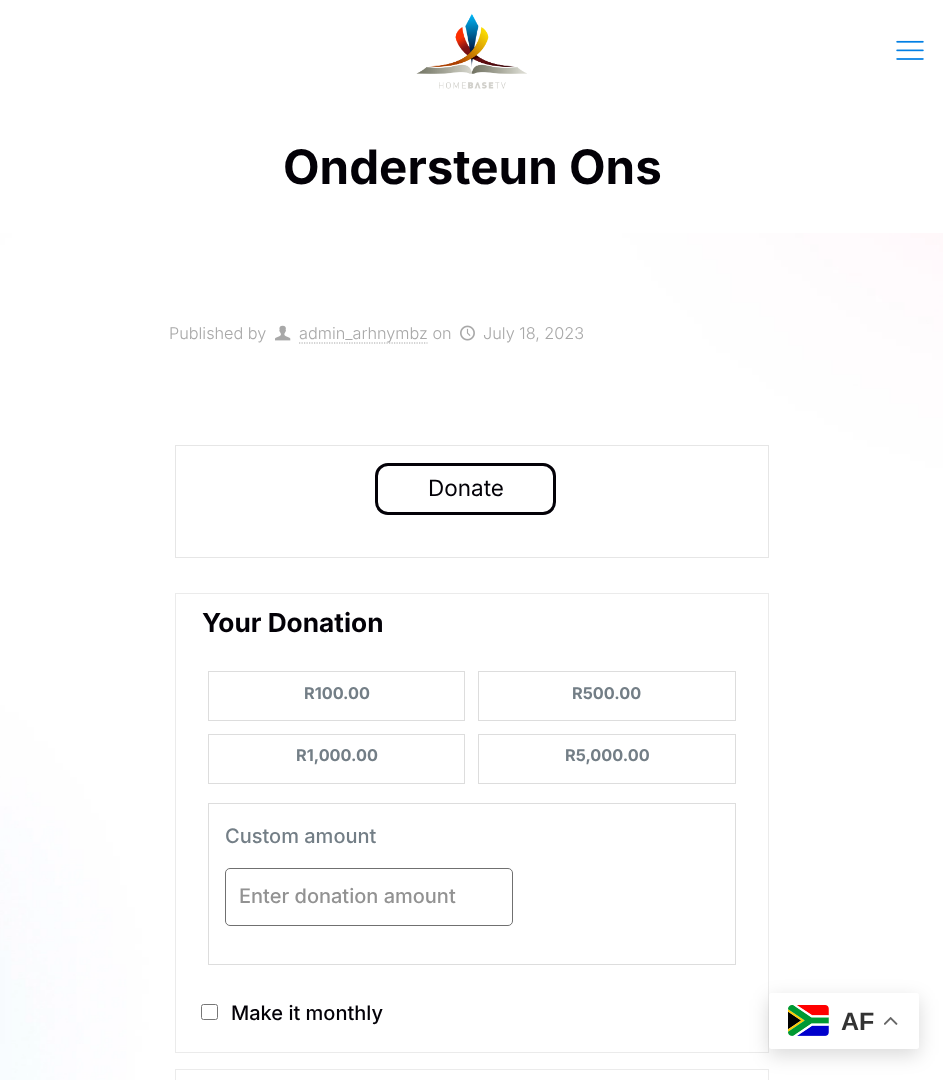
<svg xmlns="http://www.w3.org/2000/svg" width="943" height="1080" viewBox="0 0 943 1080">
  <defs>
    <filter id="blur1" x="-50%" y="-200%" width="200%" height="500%"><feGaussianBlur stdDeviation="9.5"/></filter>
  </defs>
  <rect width="100%" height="100%" fill="#ffffff"/>
  <image x="0" y="233" width="943" height="847" href="img1.png"/>
  <image x="416" y="13" width="111" height="76" href="img2.png"/>
  <image x="896" y="40" width="28" height="20" href="img3.png"/>
  <text x="283" y="184" font-family="Inter" font-size="47.5" font-weight="bold" fill="#030107">Ondersteun Ons</text>
  <text x="169" y="339" font-family="Inter" font-size="16.25" font-weight="300" fill="#a8a8a8">Published by</text>
  <image x="275" y="325" width="16" height="16" href="img4.png"/>
  <path d="M299 343H427.5" fill="none" stroke="#a8a8a8" stroke-width="1.2" stroke-dasharray="1.25 1.25"/>
  <text x="299" y="339" font-family="Inter" font-size="16.25" font-weight="300" fill="#a8a8a8">admin_arhnymbz on</text>
  <image x="460" y="325" width="15" height="16" href="img5.png"/>
  <text x="483" y="339" font-family="Inter" font-size="16.25" font-weight="300" fill="#a8a8a8">July 18, 2023</text>
  <rect x="175.5" y="445.5" width="593" height="112" fill="none" stroke="#e6e6e6"/>
  <rect x="376.5" y="464.5" width="178" height="49" rx="11.5" fill="none" stroke="#030107" stroke-width="3"/>
  <text x="428" y="496" font-family="Inter" font-size="22.5" fill="#030107">Donate</text>
  <rect x="175.5" y="593.5" width="593" height="459" fill="none" stroke="#ebebeb"/>
  <text x="202" y="632" font-family="Inter" font-size="26.25" font-weight="bold" fill="#030107">Your Donation</text>
  <rect x="208.5" y="671.5" width="256" height="49" fill="none" stroke="#dddddd"/>
  <text x="304" y="699" font-family="Inter" font-size="16.25" font-weight="bold" fill="#737e86">R100.00</text>
  <rect x="478.5" y="671.5" width="257" height="49" fill="none" stroke="#dddddd"/>
  <text x="572" y="699" font-family="Inter" font-size="16.25" font-weight="bold" fill="#737e86">R500.00</text>
  <rect x="208.5" y="734.5" width="256" height="49" fill="none" stroke="#dddddd"/>
  <text x="296" y="761" font-family="Inter" font-size="16.25" font-weight="bold" fill="#737e86">R1,000.00</text>
  <rect x="478.5" y="734.5" width="257" height="49" fill="none" stroke="#dddddd"/>
  <text x="565" y="761" font-family="Inter" font-size="16.25" font-weight="bold" fill="#737e86">R5,000.00</text>
  <rect x="208.5" y="803.5" width="527" height="161" fill="none" stroke="#dddddd"/>
  <text x="225" y="843" font-family="Inter" font-size="20" font-weight="500" fill="#737e86">Custom amount</text>
  <rect x="225.5" y="868.5" width="287" height="57" rx="4.5" fill="none" stroke="#707070"/>
  <text x="239" y="903" font-family="Inter" font-size="20" font-weight="500" fill="#929292">Enter donation amount</text>
  <rect x="201.5" y="1004.5" width="16" height="15" rx="2" fill="none" stroke="#767676"/>
  <text x="231" y="1020" font-family="Inter" font-size="20" font-weight="500" fill="#030107">Make it monthly</text>
  <rect x="175.5" y="1069.5" width="593" height="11" fill="none" stroke="#ebebeb"/>
  <rect x="769" y="999" width="150" height="56" rx="2.5" fill="#000000" fill-opacity="0.15" filter="url(#blur1)"/>
  <rect x="769" y="993" width="150" height="56" rx="2.5" fill="#ffffff"/>
  <image x="788" y="1005" width="41" height="31" href="img6.png"/>
  <text x="841" y="1030" font-family="Liberation Sans" font-size="25" font-weight="bold" fill="#333333">AF</text>
  <image x="884" y="1017" width="14" height="8" href="img7.png"/>
</svg>
